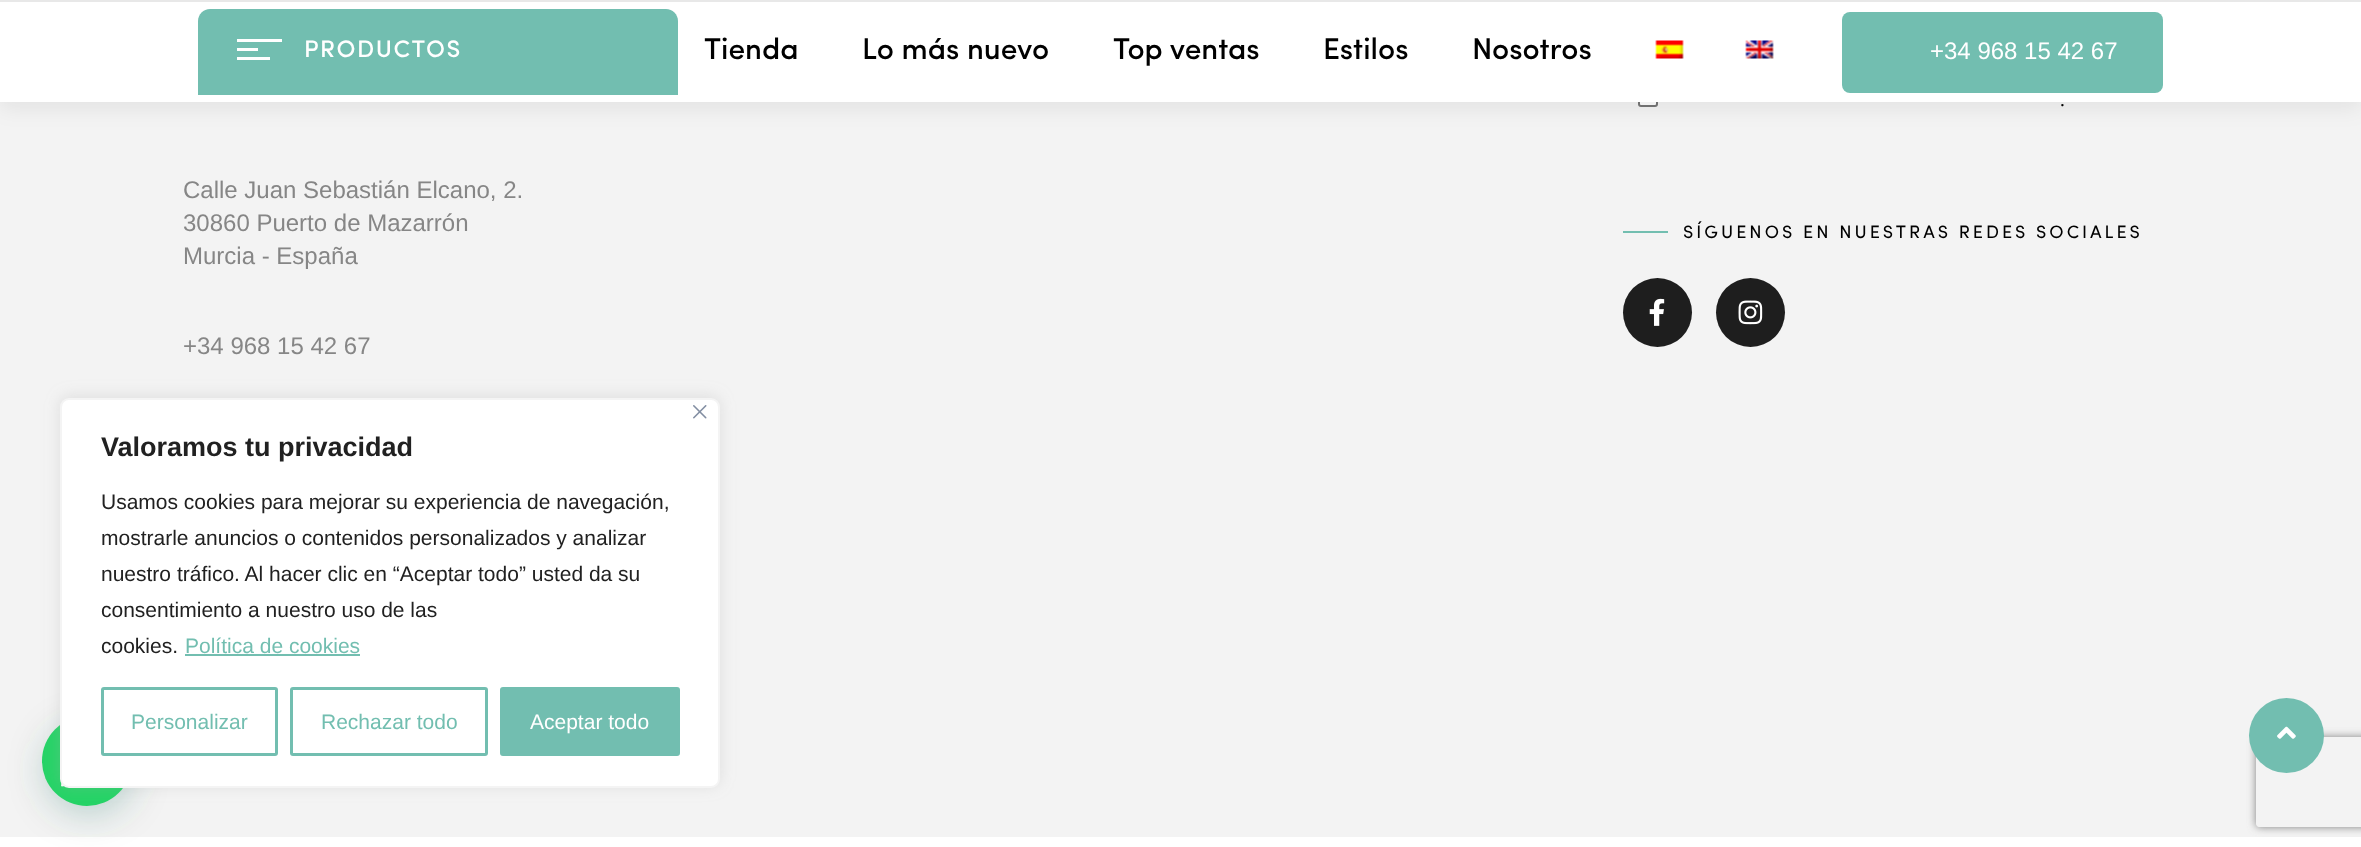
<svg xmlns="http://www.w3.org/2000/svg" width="2361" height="847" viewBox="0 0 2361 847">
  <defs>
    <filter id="blur1" x="-50%" y="-200%" width="200%" height="500%"><feGaussianBlur stdDeviation="11"/></filter>
    <filter id="blur2" x="-50%" y="-200%" width="200%" height="500%"><feGaussianBlur stdDeviation="18"/></filter>
    <filter id="blur3" x="-50%" y="-200%" width="200%" height="500%"><feGaussianBlur stdDeviation="7.5"/></filter>
    <clipPath id="clip1"><path d="M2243 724H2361V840H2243ZM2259 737H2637C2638.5 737 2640 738.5 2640 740V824C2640 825.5 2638.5 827 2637 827H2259C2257.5 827 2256 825.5 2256 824V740C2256 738.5 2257.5 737 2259 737Z" clip-rule="evenodd"/></clipPath>
    <filter id="blur4" x="-50%" y="-200%" width="200%" height="500%"><feGaussianBlur stdDeviation="4"/></filter>
  </defs>
  <rect width="100%" height="100%" fill="#ffffff"/>
  <rect x="0" y="102" width="2361" height="735" fill="#f3f3f3"/>
  <rect x="1639" y="88" width="18" height="18" rx="2" fill="#ffffff" stroke="#767676" stroke-width="2"/>
  <rect x="0" y="5" width="2361" height="102" fill="#000000" fill-opacity="0.08" filter="url(#blur1)"/>
  <rect x="0" y="2" width="2361" height="100" fill="#ffffff"/>
  <rect x="0" y="0" width="2361" height="2" fill="#e8e8e8"/>
  <path d="M210 9H666C672.5 9 678 14.5 678 21V95H198V21C198 14.5 203.5 9 210 9Z" fill="#72beb0"/>
  <rect x="237" y="39" width="45" height="3" fill="#ffffff"/>
  <rect x="237" y="48" width="21" height="3" fill="#ffffff"/>
  <rect x="237" y="57" width="33" height="3" fill="#ffffff"/>
  <text x="304" y="57" font-family="Sofia" font-size="24" font-weight="500" letter-spacing="1.5" fill="#ffffff">PRODUCTOS</text>
  <text x="704" y="59" font-family="Sofia" font-size="30" font-weight="500" fill="#000000">Tienda</text>
  <text x="862" y="59" font-family="Sofia" font-size="30" font-weight="500" fill="#000000">Lo más nuevo</text>
  <text x="1113" y="59" font-family="Sofia" font-size="30" font-weight="500" fill="#000000">Top ventas</text>
  <text x="1323" y="59" font-family="Sofia" font-size="30" font-weight="500" fill="#000000">Estilos</text>
  <text x="1472" y="59" font-family="Sofia" font-size="30" font-weight="500" fill="#000000">Nosotros</text>
  <image x="1655" y="40" width="29" height="19" href="img1.png"/>
  <image x="1745" y="40" width="29" height="19" href="img2.png"/>
  <rect x="1842" y="12" width="321" height="81" rx="8" fill="#72beb0"/>
  <text x="1930" y="59" font-family="Liberation Sans" font-size="24" fill="#ffffff">+34 968 15 42 67</text>
  <text x="183" y="198" font-family="Liberation Sans" font-size="24" fill="#868686">Calle Juan Sebastián Elcano, 2.</text>
  <text x="183" y="231" font-family="Liberation Sans" font-size="24" fill="#868686">30860 Puerto de Mazarrón</text>
  <text x="183" y="264" font-family="Liberation Sans" font-size="24" fill="#868686">Murcia - España</text>
  <text x="183" y="354" font-family="Liberation Sans" font-size="24" fill="#868686">+34 968 15 42 67</text>
  <text x="2060" y="106" font-family="Sofia" font-size="18" fill="#000000">.</text>
  <rect x="1623" y="231" width="45" height="2" fill="#72beb0"/>
  <text x="1683" y="238" font-family="'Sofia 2'" font-size="18" letter-spacing="3" fill="#000000">SÍGUENOS EN NUESTRAS REDES SOCIALES</text>
  <circle cx="1657.5" cy="312.5" r="34.5" fill="#1e1e1e"/>
  <image x="1649" y="298" width="16" height="28" href="img3.png"/>
  <circle cx="1750.5" cy="312.5" r="34.5" fill="#1e1e1e"/>
  <image x="1738" y="300" width="25" height="25" href="img4.png"/>
  <rect x="44" y="725" width="90" height="90" rx="45" fill="#075e54" fill-opacity="0.24" filter="url(#blur2)"/>
  <circle cx="87" cy="761" r="45" fill="#25d366"/>
  <image x="61" y="783" width="4" height="4" href="img6.png"/>
  <rect x="60" y="396" width="660" height="390" rx="9" fill="#acabab" fill-opacity="0.3" filter="url(#blur3)"/>
  <rect x="61" y="399" width="658" height="388" rx="8" fill="#ffffff" stroke="#f4f4f4" stroke-width="2"/>
  <image x="693" y="405" width="14" height="14" href="img5.png"/>
  <text x="101" y="456" font-family="Liberation Sans" font-size="27" font-weight="bold" fill="#212121">Valoramos tu privacidad</text>
  <text x="101" y="509" font-family="Liberation Sans" font-size="21" fill="#212121">Usamos cookies para mejorar su experiencia de navegación,</text>
  <text x="101" y="545" font-family="Liberation Sans" font-size="21" fill="#212121">mostrarle anuncios o contenidos personalizados y analizar</text>
  <text x="101" y="581" font-family="Liberation Sans" font-size="21" fill="#212121">nuestro tráfico. Al hacer clic en “Aceptar todo” usted da su</text>
  <text x="101" y="617" font-family="Liberation Sans" font-size="21" fill="#212121">consentimiento a nuestro uso de las</text>
  <text x="101" y="653" font-family="Liberation Sans" font-size="21" fill="#212121">cookies.</text>
  <text x="185" y="653" font-family="Liberation Sans" font-size="21" fill="#72beb0">Política de cookies</text>
  <rect x="185" y="654" width="175" height="2" fill="#72beb0"/>
  <rect x="102.5" y="688.5" width="174" height="66" rx="1.5" fill="none" stroke="#72beb0" stroke-width="3"/>
  <text x="131" y="729" font-family="Liberation Sans" font-size="21" fill="#72beb0">Personalizar</text>
  <rect x="291.5" y="688.5" width="195" height="66" rx="1.5" fill="none" stroke="#72beb0" stroke-width="3"/>
  <text x="321" y="729" font-family="Liberation Sans" font-size="21" fill="#72beb0">Rechazar todo</text>
  <rect x="501.5" y="688.5" width="177" height="66" rx="1.5" fill="#72beb0" stroke="#72beb0" stroke-width="3"/>
  <text x="530" y="729" font-family="Liberation Sans" font-size="21" fill="#ffffff">Aceptar todo</text>
  <g clip-path="url(#clip1)">
    <rect x="2256" y="737" width="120" height="90" rx="3" fill="#808080" filter="url(#blur4)"/>
  </g>
  <circle cx="2286.5" cy="735.5" r="37.5" fill="#72beb0"/>
  <image x="2277" y="726" width="19" height="13" href="img7.png"/>
</svg>
